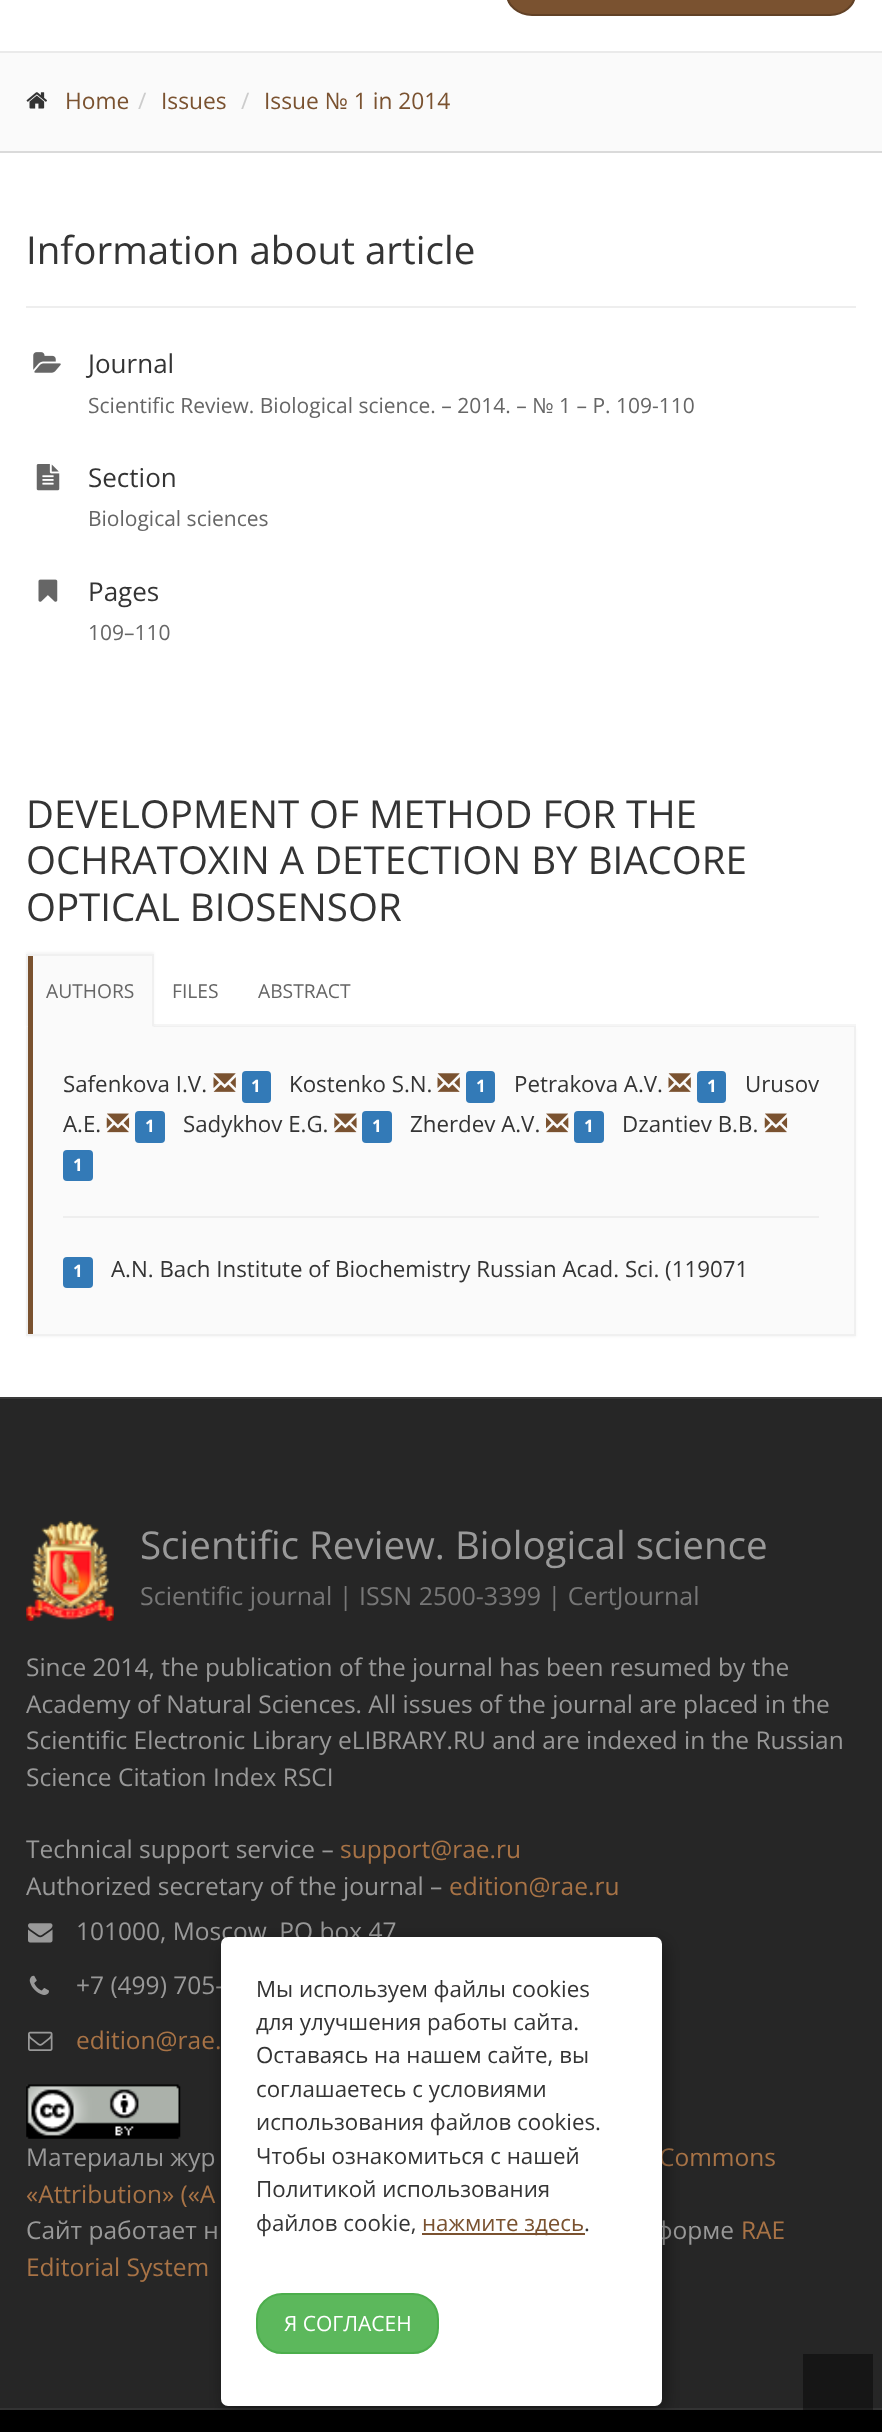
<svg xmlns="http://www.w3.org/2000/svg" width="882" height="2432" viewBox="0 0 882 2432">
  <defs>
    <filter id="blur1" x="-50%" y="-200%" width="200%" height="500%"><feGaussianBlur stdDeviation="1"/></filter>
    <filter id="blur2" x="-50%" y="-200%" width="200%" height="500%"><feGaussianBlur stdDeviation="9"/></filter>
  </defs>
  <rect width="100%" height="100%" fill="#ffffff"/>
  <rect x="0" y="51" width="882" height="2" fill="#eaeaea"/>
  <rect x="507" y="-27" width="348" height="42" rx="25" fill="#7a5230" stroke="#614126" stroke-width="2"/>
  <rect x="0" y="53" width="882" height="98" fill="#fafafa"/>
  <rect x="0" y="151" width="882" height="2" fill="#dadada"/>
  <image x="26" y="92" width="21" height="17" href="img1.png"/>
  <text x="65" y="109" font-family="Open Sans" font-size="22.75" fill="#7a5230">Home</text>
  <text x="138" y="109" font-family="Open Sans" font-size="22.75" fill="#cccccc">/</text>
  <text x="161" y="109" font-family="Open Sans" font-size="22.75" fill="#7a5230">Issues</text>
  <text x="241" y="109" font-family="Open Sans" font-size="22.75" fill="#cccccc">/</text>
  <text x="264" y="109" font-family="Open Sans" font-size="22.75" fill="#7a5230">Issue № 1 in 2014</text>
  <text x="26" y="264" font-family="Open Sans" font-size="38.5" fill="#343434">Information about article</text>
  <rect x="26" y="306" width="830" height="2" fill="#eeeeee"/>
  <image x="33" y="352" width="28" height="21" href="img2.png"/>
  <text x="88" y="373" font-family="Open Sans" font-size="26" fill="#343434">Journal</text>
  <text x="88" y="413" font-family="Open Sans" font-size="21" fill="#666666">Scientific Review. Biological science. – 2014. – № 1 – P. 109-110</text>
  <image x="36" y="464" width="24" height="27" href="img3.png"/>
  <text x="88" y="487" font-family="Open Sans" font-size="26" fill="#343434">Section</text>
  <text x="88" y="526" font-family="Open Sans" font-size="21" fill="#666666">Biological sciences</text>
  <image x="38" y="579" width="20" height="23" href="img4.png"/>
  <text x="88" y="601" font-family="Open Sans" font-size="26" fill="#343434">Pages</text>
  <text x="88" y="640" font-family="Open Sans" font-size="21" fill="#666666">109–110</text>
  <text x="26" y="828" font-family="Open Sans" font-size="38.5" fill="#343434">DEVELOPMENT OF METHOD FOR THE</text>
  <text x="26" y="874" font-family="Open Sans" font-size="38.5" fill="#343434">OCHRATOXIN A DETECTION BY BIACORE</text>
  <text x="26" y="921" font-family="Open Sans" font-size="38.5" fill="#343434">OPTICAL BIOSENSOR</text>
  <rect x="154" y="1024" width="702" height="2" fill="#f5f5f5"/>
  <rect x="154" y="1026" width="702" height="1" fill="#f0f0f0"/>
  <rect x="26" y="952" width="128" height="74" fill="#000000" fill-opacity="0.04" filter="url(#blur1)"/>
  <rect x="26" y="956" width="128" height="71" fill="#fafafa"/>
  <rect x="26" y="954" width="128" height="2" fill="#f0f0f0"/>
  <path d="M154 954V1027L152 1026V956Z" fill="#f0f0f0"/>
  <path d="M26 1027V954L28 956V1026Z" fill="#f0f0f0"/>
  <rect x="28" y="956" width="5" height="71" fill="#7a5230"/>
  <text x="46" y="998" font-family="Open Sans" font-size="19.25" fill="#666666">AUTHORS</text>
  <text x="172" y="998" font-family="Open Sans" font-size="19.25" fill="#666666">FILES</text>
  <text x="258" y="998" font-family="Open Sans" font-size="19.25" fill="#666666">ABSTRACT</text>
  <rect x="26" y="1029" width="830" height="308" fill="#000000" fill-opacity="0.04" filter="url(#blur1)"/>
  <rect x="33" y="1027" width="821" height="307" fill="#fafafa"/>
  <rect x="854" y="1027" width="2" height="308" fill="#f0f0f0"/>
  <rect x="26" y="1334" width="830" height="2" fill="#f0f0f0"/>
  <rect x="26" y="1027" width="2" height="308" fill="#f0f0f0"/>
  <rect x="28" y="1027" width="5" height="307" fill="#7a5230"/>
  <text x="63" y="1092" font-family="Open Sans" font-size="22.3" fill="#343434">Safenkova I.V.</text>
  <image x="213" y="1073" width="23" height="19" href="img5.png"/>
  <rect x="242" y="1071" width="29" height="32" rx="4" fill="#337ab7"/>
  <text x="251" y="1092" font-family="Open Sans" font-size="17" font-weight="bold" fill="#ffffff">1</text>
  <text x="289" y="1092" font-family="Open Sans" font-size="22.3" fill="#343434">Kostenko S.N.</text>
  <image x="437" y="1073" width="23" height="19" href="img5.png"/>
  <rect x="466" y="1071" width="29" height="32" rx="4" fill="#337ab7"/>
  <text x="476" y="1092" font-family="Open Sans" font-size="17" font-weight="bold" fill="#ffffff">1</text>
  <text x="514" y="1092" font-family="Open Sans" font-size="22.3" fill="#343434">Petrakova A.V.</text>
  <image x="668" y="1073" width="23" height="19" href="img5.png"/>
  <rect x="697" y="1071" width="29" height="32" rx="4" fill="#337ab7"/>
  <text x="707" y="1092" font-family="Open Sans" font-size="17" font-weight="bold" fill="#ffffff">1</text>
  <text x="745" y="1092" font-family="Open Sans" font-size="22.3" fill="#343434">Urusov</text>
  <text x="63" y="1132" font-family="Open Sans" font-size="22.3" fill="#343434">A.E.</text>
  <image x="106" y="1113" width="24" height="20" href="img6.png"/>
  <rect x="135" y="1111" width="30" height="32" rx="4" fill="#337ab7"/>
  <text x="145" y="1132" font-family="Open Sans" font-size="17" font-weight="bold" fill="#ffffff">1</text>
  <text x="622" y="1132" font-family="Open Sans" font-size="22.3" fill="#343434">Dzantiev B.B.</text>
  <image x="764" y="1113" width="24" height="20" href="img6.png"/>
  <rect x="63" y="1150" width="30" height="31" rx="4" fill="#337ab7"/>
  <text x="73" y="1171" font-family="Open Sans" font-size="17" font-weight="bold" fill="#ffffff">1</text>
  <text x="183" y="1132" font-family="Open Sans" font-size="22.3" fill="#343434">Sadykhov E.G.</text>
  <image x="334" y="1113" width="23" height="20" href="img7.png"/>
  <rect x="362" y="1111" width="30" height="32" rx="4" fill="#337ab7"/>
  <text x="372" y="1132" font-family="Open Sans" font-size="17" font-weight="bold" fill="#ffffff">1</text>
  <text x="410" y="1132" font-family="Open Sans" font-size="22.3" fill="#343434">Zherdev A.V.</text>
  <image x="546" y="1113" width="23" height="20" href="img8.png"/>
  <rect x="574" y="1111" width="30" height="32" rx="4" fill="#337ab7"/>
  <text x="584" y="1132" font-family="Open Sans" font-size="17" font-weight="bold" fill="#ffffff">1</text>
  <rect x="63" y="1216" width="756" height="2" fill="#eeeeee"/>
  <rect x="63" y="1257" width="30" height="31" rx="4" fill="#337ab7"/>
  <text x="73" y="1277" font-family="Open Sans" font-size="17" font-weight="bold" fill="#ffffff">1</text>
  <text x="111" y="1277" font-family="Open Sans" font-size="22.3" fill="#343434">A.N. Bach Institute of Biochemistry Russian Acad. Sci. (119071</text>
  <rect x="0" y="1399" width="882" height="1009" fill="#262626"/>
  <rect x="0" y="1397" width="882" height="2" fill="#3a3a3a"/>
  <rect x="0" y="2408" width="882" height="2" fill="#333333"/>
  <image x="26" y="1521" width="88" height="100" href="img9.png"/>
  <text x="140" y="1559" font-family="Open Sans" font-size="38.5" fill="#999999">Scientific Review. Biological science</text>
  <text x="140" y="1605" font-family="Open Sans" font-size="25" fill="#777777">Scientific journal | ISSN 2500-3399 | CertJournal</text>
  <text x="26" y="1676" font-family="Open Sans" font-size="24.5" fill="#999999">Since 2014, the publication of the journal has been resumed by the</text>
  <text x="26" y="1713" font-family="Open Sans" font-size="24.5" fill="#999999">Academy of Natural Sciences. All issues of the journal are placed in the</text>
  <text x="26" y="1749" font-family="Open Sans" font-size="24.5" fill="#999999">Scientific Electronic Library eLIBRARY.RU and are indexed in the Russian</text>
  <text x="26" y="1786" font-family="Open Sans" font-size="24.5" fill="#999999">Science Citation Index RSCI</text>
  <text x="26" y="1858" font-family="Open Sans" font-size="24.5" fill="#999999">Technical support service –</text>
  <text x="340" y="1858" font-family="Open Sans" font-size="24.5" fill="#a87346">support@rae.ru</text>
  <text x="26" y="1895" font-family="Open Sans" font-size="24.5" fill="#999999">Authorized secretary of the journal –</text>
  <text x="449" y="1895" font-family="Open Sans" font-size="24.5" fill="#a87346">edition@rae.ru</text>
  <image x="28" y="1923" width="25" height="20" href="img10.png"/>
  <text x="76" y="1940" font-family="Open Sans" font-size="24.5" fill="#999999">101000, Moscow, PO box 47</text>
  <image x="29" y="1975" width="20" height="20" href="img11.png"/>
  <text x="76" y="1994" font-family="Open Sans" font-size="24.5" fill="#999999">+7 (499) 705-</text>
  <image x="28" y="2031" width="25" height="20" href="img12.png"/>
  <text x="76" y="2049" font-family="Open Sans" font-size="24.5" fill="#a87346">edition@rae.</text>
  <image x="26" y="2084" width="155" height="55" href="img13.png"/>
  <text x="26" y="2166" font-family="Open Sans" font-size="24.5" fill="#999999">Материалы жур</text>
  <text x="659" y="2166" font-family="Open Sans" font-size="24.5" fill="#a87346">Commons</text>
  <text x="26" y="2203" font-family="Open Sans" font-size="24.5" fill="#a87346">«Attribution» («А</text>
  <text x="26" y="2239" font-family="Open Sans" font-size="24.5" fill="#999999">Сайт работает н</text>
  <text x="655" y="2239" font-family="Open Sans" font-size="24.5" fill="#999999">форме</text>
  <text x="741" y="2239" font-family="Open Sans" font-size="24.5" fill="#a87346">RAE</text>
  <text x="26" y="2276" font-family="Open Sans" font-size="24.5" fill="#a87346">Editorial System</text>
  <rect x="0" y="2410" width="882" height="22" fill="#000000"/>
  <rect x="224" y="1943" width="441" height="469" rx="7" fill="#000000" fill-opacity="0.4" filter="url(#blur2)"/>
  <rect x="221" y="1937" width="441" height="469" rx="7" fill="#ffffff"/>
  <text x="256" y="1997" font-family="Open Sans" font-size="22.3" fill="#343434">Мы используем файлы cookies</text>
  <text x="256" y="2030" font-family="Open Sans" font-size="22.3" fill="#343434">для улучшения работы сайта.</text>
  <text x="256" y="2063" font-family="Open Sans" font-size="22.3" fill="#343434">Оставаясь на нашем сайте, вы</text>
  <text x="256" y="2097" font-family="Open Sans" font-size="22.3" fill="#343434">соглашаетесь с условиями</text>
  <text x="256" y="2130" font-family="Open Sans" font-size="22.3" fill="#343434">использования файлов cookies.</text>
  <text x="256" y="2164" font-family="Open Sans" font-size="22.3" fill="#343434">Чтобы ознакомиться с нашей</text>
  <text x="256" y="2197" font-family="Open Sans" font-size="22.3" fill="#343434">Политикой использования</text>
  <text x="256" y="2231" font-family="Open Sans" font-size="22.3" fill="#343434">файлов cookie,</text>
  <rect x="422" y="2233" width="163" height="2" fill="#7a5230"/>
  <text x="422" y="2231" font-family="Open Sans" font-size="22.3" fill="#7a5230">нажмите здесь</text>
  <text x="584" y="2231" font-family="Open Sans" font-size="22.3" fill="#343434">.</text>
  <rect x="257" y="2294" width="181" height="59" rx="25" fill="#5cb85c" stroke="#4cae4c" stroke-width="2"/>
  <text x="284" y="2331" font-family="Open Sans" font-size="21" fill="#ffffff">Я СОГЛАСЕН</text>
  <rect x="803" y="2354" width="70" height="56" fill="#000000" fill-opacity="0.4"/>
</svg>
